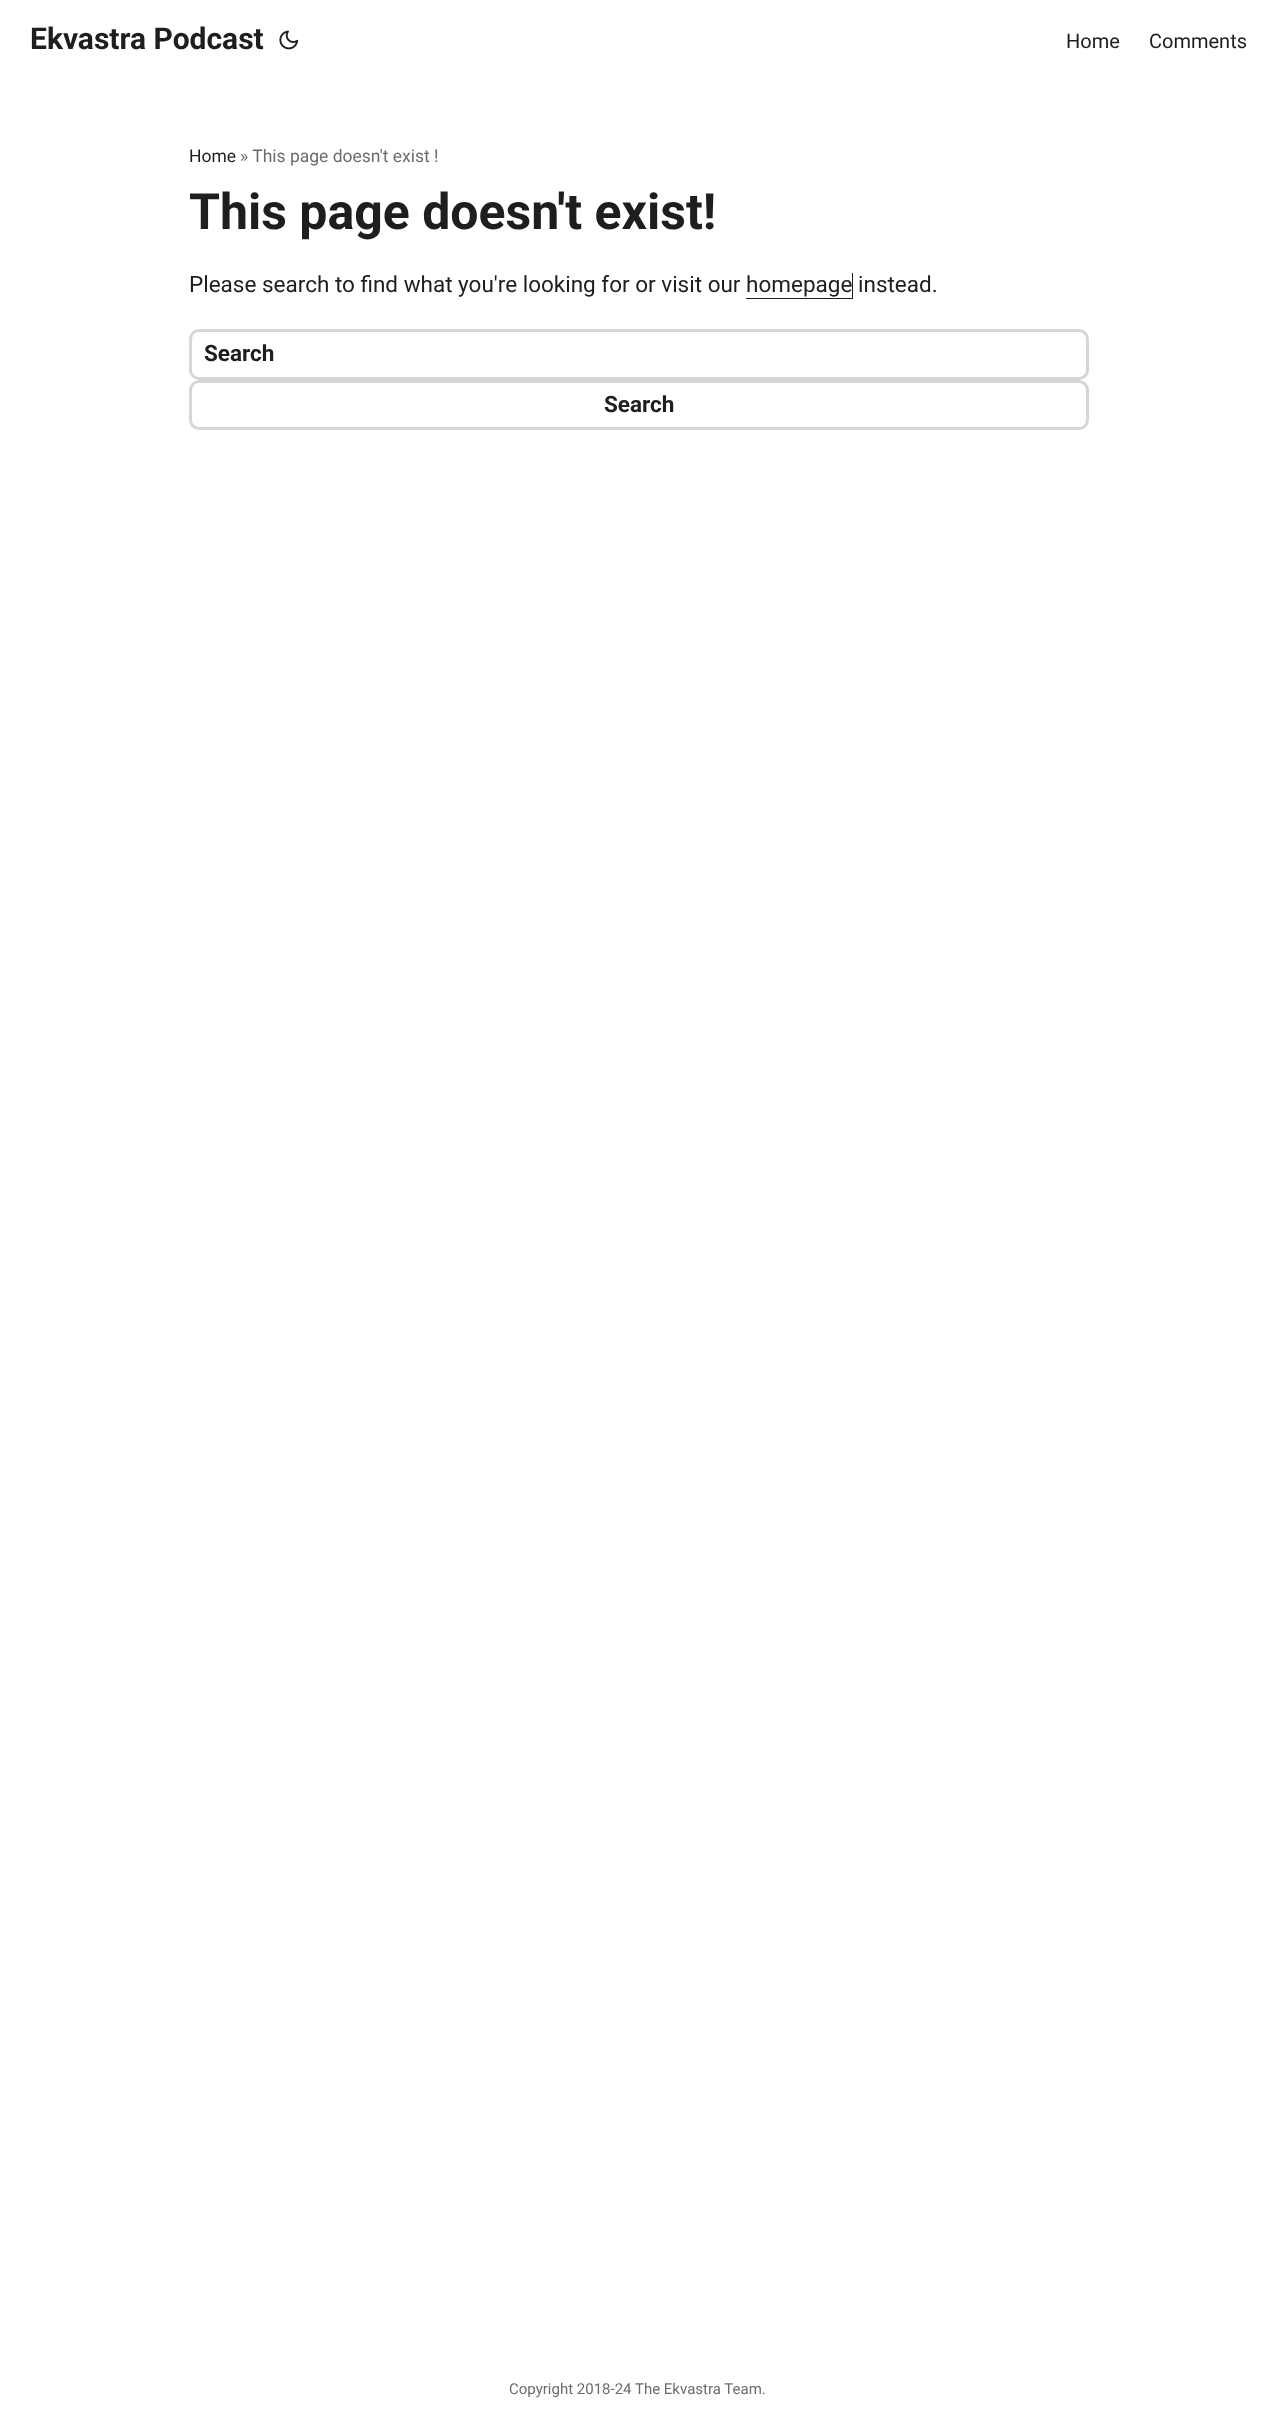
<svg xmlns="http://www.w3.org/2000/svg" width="1277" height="2419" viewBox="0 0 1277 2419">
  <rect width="100%" height="100%" fill="#ffffff"/>
  <text x="30" y="49" font-family="Roboto" font-size="30" font-weight="bold" fill="#1e1e1e">Ekvastra Podcast</text>
  <image x="279" y="30" width="20" height="20" href="img1.png"/>
  <text x="1066" y="48" font-family="Roboto" font-size="20" fill="#1e1e1e">Home</text>
  <text x="1149" y="48" font-family="Roboto" font-size="20" fill="#1e1e1e">Comments</text>
  <text x="189" y="162" font-family="Roboto" font-size="17.5" fill="#1e1e1e">Home</text>
  <text x="240" y="162" font-family="Roboto" font-size="17.5" fill="#6c6c6c">» This page doesn't exist !</text>
  <text x="189" y="229" font-family="Roboto" font-size="50" font-weight="bold" fill="#1e1e1e">This page doesn't exist!</text>
  <text x="189" y="292" font-family="Roboto" font-size="22.5" fill="#1e1e1e">Please search to find what you're looking for or visit our</text>
  <path d="M746 273V299H853V273H852V298H746Z" fill="#1e1e1e"/>
  <text x="746" y="292" font-family="Roboto" font-size="22.5" fill="#1e1e1e">homepage</text>
  <text x="858" y="292" font-family="Roboto" font-size="22.5" fill="#1e1e1e">instead.</text>
  <rect x="190.5" y="330.5" width="897" height="48" rx="8.5" fill="none" stroke="#d6d6d6" stroke-width="3"/>
  <text x="204" y="361" font-family="Roboto" font-size="22.5" font-weight="bold" fill="#1e1e1e">Search</text>
  <rect x="190.5" y="381.5" width="897" height="47" rx="8.5" fill="none" stroke="#d6d6d6" stroke-width="3"/>
  <text x="604" y="412" font-family="Roboto" font-size="22.5" font-weight="bold" fill="#1e1e1e">Search</text>
  <text x="509" y="2394" font-family="Roboto" font-size="15" fill="#6c6c6c">Copyright 2018-24 The Ekvastra Team.</text>
</svg>
